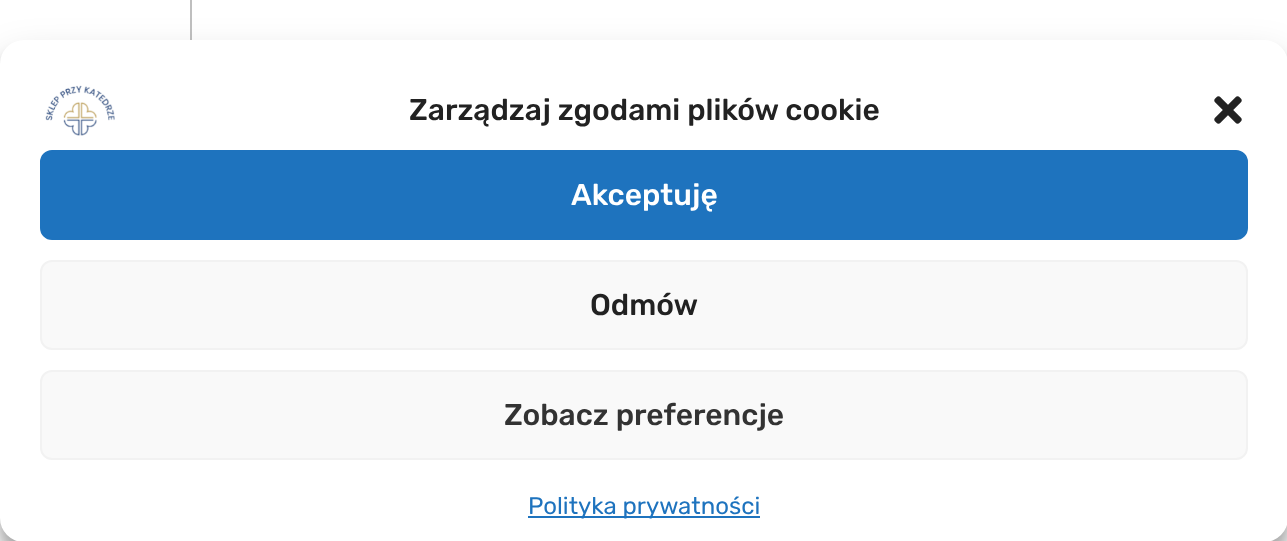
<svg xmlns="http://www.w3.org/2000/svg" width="1287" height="541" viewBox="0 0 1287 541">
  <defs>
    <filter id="blur1" x="-50%" y="-200%" width="200%" height="500%"><feGaussianBlur stdDeviation="6"/></filter>
    <filter id="blur2" x="-50%" y="-200%" width="200%" height="500%"><feGaussianBlur stdDeviation="20"/></filter>
  </defs>
  <rect width="100%" height="100%" fill="#ffffff"/>
  <rect x="190" y="0" width="2" height="40" fill="#bfbfbf"/>
  <rect x="0" y="52" width="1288" height="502" rx="24" fill="#000000" fill-opacity="0.23" filter="url(#blur1)"/>
  <rect x="0" y="60" width="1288" height="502" rx="24" fill="#000000" fill-opacity="0.19" filter="url(#blur2)"/>
  <rect x="0" y="40" width="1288" height="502" rx="24" fill="#ffffff"/>
  <image x="45" y="85" width="70" height="51" href="img1.png"/>
  <text x="409" y="120" font-family="Rubik" font-size="30" font-weight="500" fill="#222222">Zarządzaj zgodami plików cookie</text>
  <image x="1214" y="96" width="28" height="28" href="img2.png"/>
  <rect x="41" y="151" width="1206" height="88" rx="11" fill="#1e73be" stroke="#1e73be" stroke-width="2"/>
  <text x="571" y="205" font-family="Rubik" font-size="30" font-weight="500" fill="#ffffff">Akceptuję</text>
  <rect x="41" y="261" width="1206" height="88" rx="11" fill="#f9f9f9" stroke="#f2f2f2" stroke-width="2"/>
  <text x="590" y="315" font-family="Rubik" font-size="30" font-weight="500" fill="#222222">Odmów</text>
  <rect x="41" y="371" width="1206" height="88" rx="11" fill="#f9f9f9" stroke="#f2f2f2" stroke-width="2"/>
  <text x="504" y="425" font-family="Rubik" font-size="30" font-weight="500" fill="#333333">Zobacz preferencje</text>
  <rect x="528" y="516" width="232" height="2" fill="#1e73be"/>
  <text x="528" y="514" font-family="Rubik" font-size="24" fill="#1e73be">Polityka prywatności</text>
</svg>
